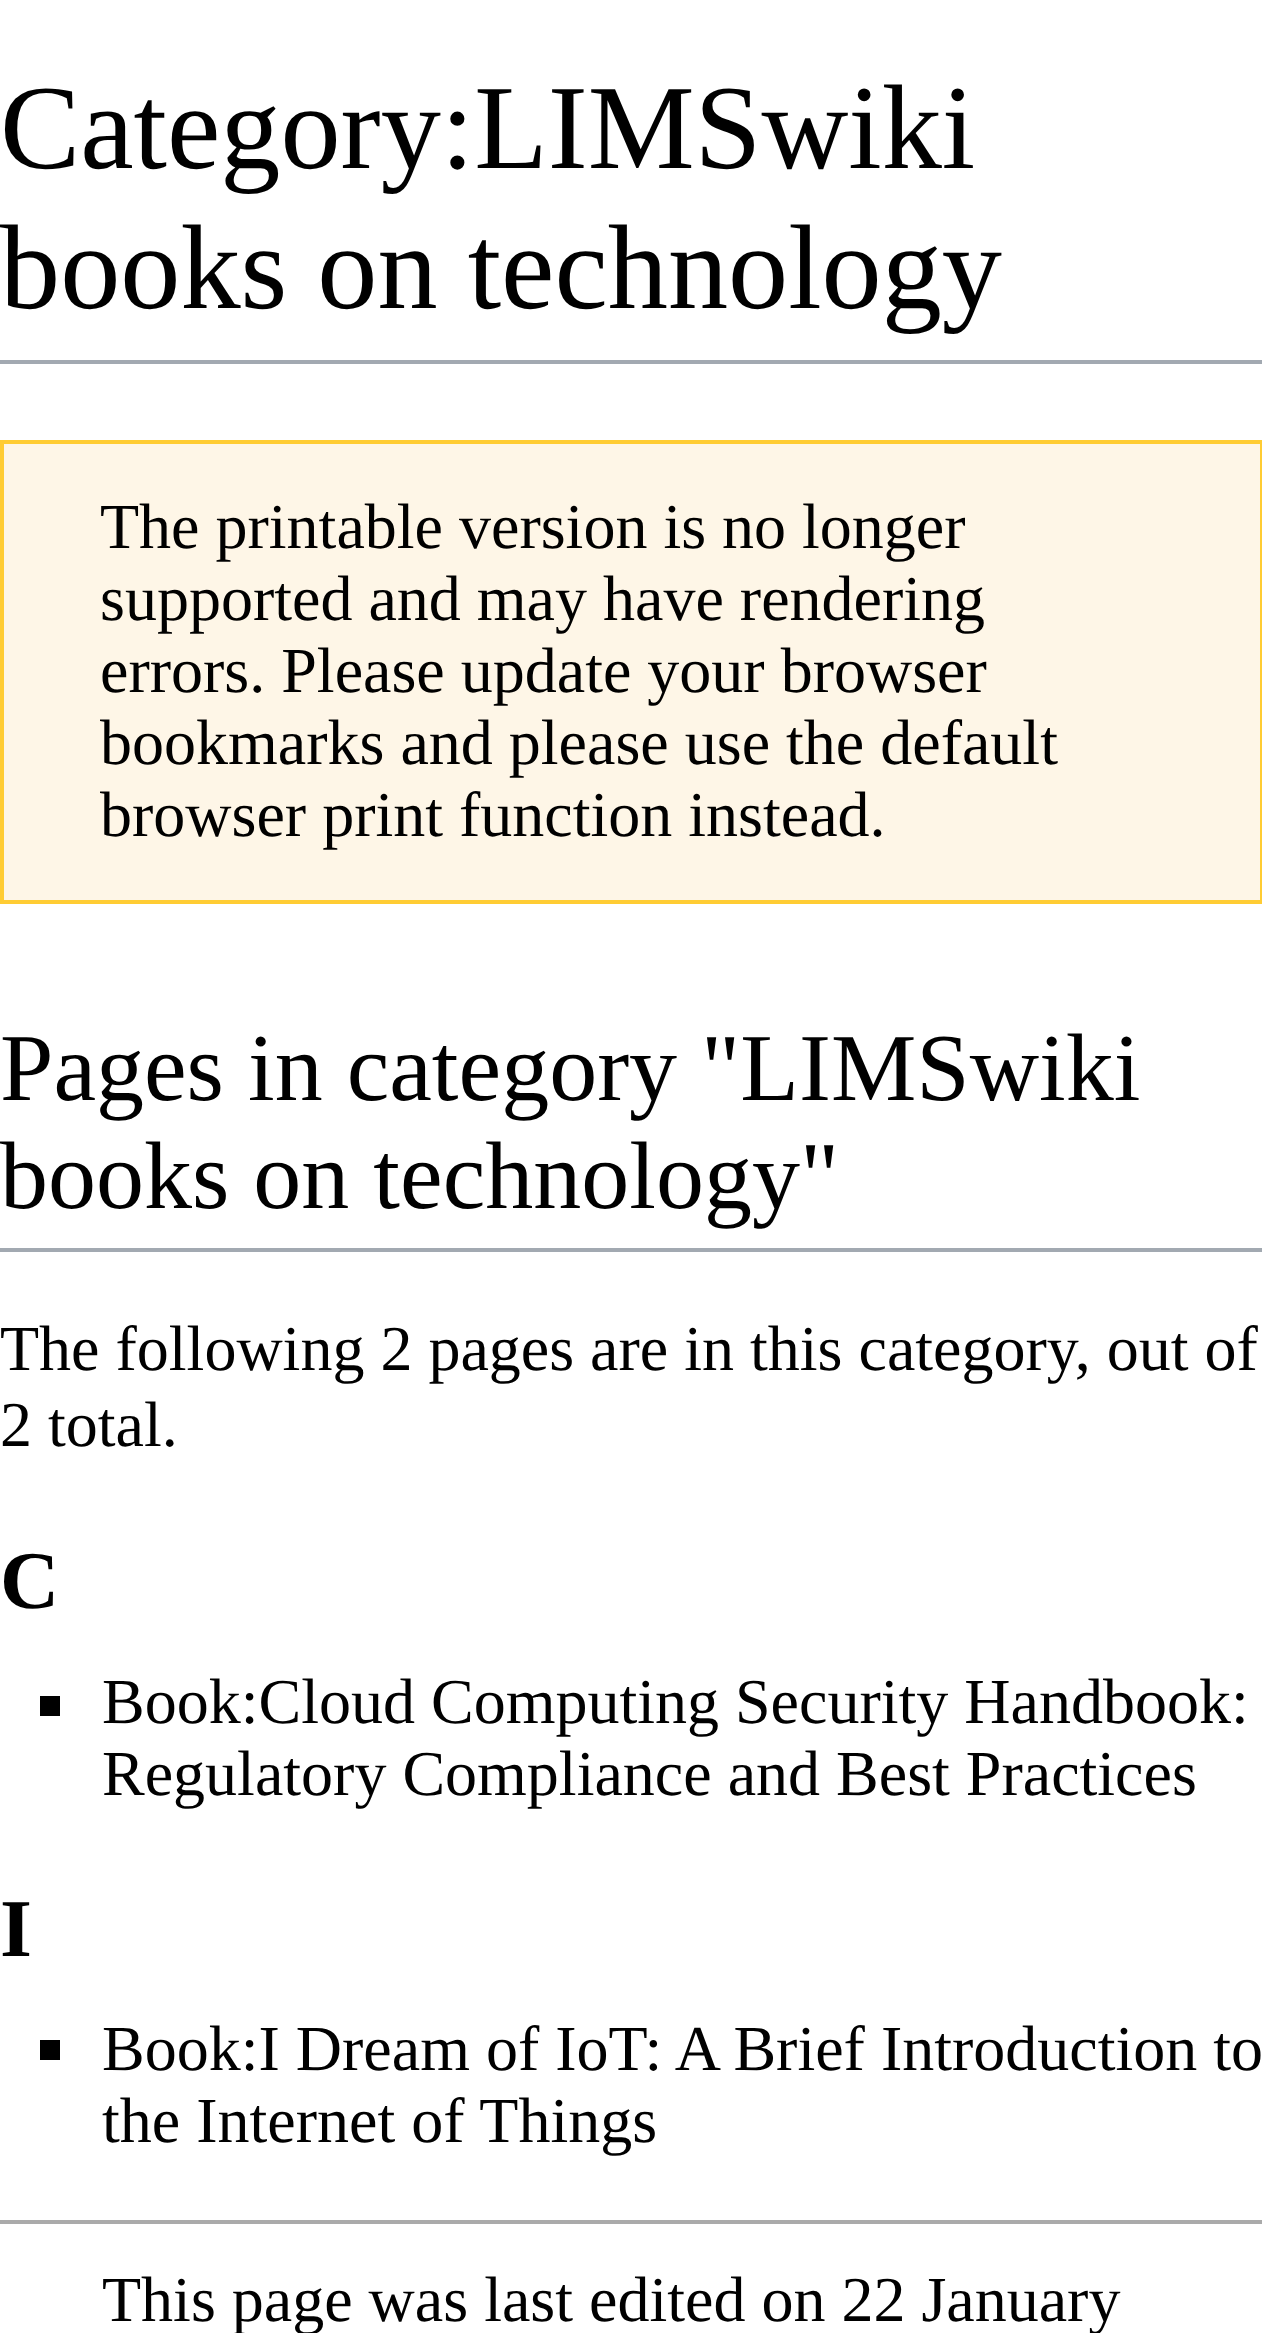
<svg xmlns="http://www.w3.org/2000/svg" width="1262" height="2333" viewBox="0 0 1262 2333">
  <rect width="100%" height="100%" fill="#ffffff"/>
  <rect x="0" y="360" width="1262" height="4" fill="#a2a9b1"/>
  <text x="0" y="168" font-family="Liberation Serif" font-size="120.25" fill="#000000">Category:LIMSwiki</text>
  <text x="0" y="308" font-family="Liberation Serif" font-size="120.25" fill="#000000">books on technology</text>
  <rect x="2" y="442" width="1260" height="460" fill="#fef6e7" stroke="#ffcc33" stroke-width="4"/>
  <text x="100" y="548" font-family="Liberation Serif" font-size="64" fill="#000000">The printable version is no longer</text>
  <text x="100" y="620" font-family="Liberation Serif" font-size="64" fill="#000000">supported and may have rendering</text>
  <text x="100" y="692" font-family="Liberation Serif" font-size="64" fill="#000000">errors. Please update your browser</text>
  <text x="100" y="764" font-family="Liberation Serif" font-size="64" fill="#000000">bookmarks and please use the default</text>
  <text x="100" y="836" font-family="Liberation Serif" font-size="64" fill="#000000">browser print function instead.</text>
  <rect x="0" y="1248" width="1262" height="4" fill="#a2a9b1"/>
  <text x="0" y="1100" font-family="Liberation Serif" font-size="96" fill="#000000">Pages in category "LIMSwiki</text>
  <text x="0" y="1208" font-family="Liberation Serif" font-size="96" fill="#000000">books on technology"</text>
  <text x="0" y="1370" font-family="Liberation Serif" font-size="64" fill="#000000">The following 2 pages are in this category, out of</text>
  <text x="0" y="1446" font-family="Liberation Serif" font-size="64" fill="#000000">2 total.</text>
  <text x="0" y="1608" font-family="Liberation Serif" font-size="82" font-weight="bold" fill="#000000">C</text>
  <rect x="40" y="1696" width="20" height="20" fill="#000000"/>
  <text x="102" y="1723" font-family="Liberation Serif" font-size="64" fill="#000000">Book:Cloud Computing Security Handbook:</text>
  <text x="102" y="1795" font-family="Liberation Serif" font-size="64" fill="#000000">Regulatory Compliance and Best Practices</text>
  <text x="0" y="1956" font-family="Liberation Serif" font-size="82" font-weight="bold" fill="#000000">I</text>
  <rect x="40" y="2040" width="20" height="20" fill="#000000"/>
  <text x="102" y="2070" font-family="Liberation Serif" font-size="64" fill="#000000">Book:I Dream of IoT: A Brief Introduction to</text>
  <text x="102" y="2142" font-family="Liberation Serif" font-size="64" fill="#000000">the Internet of Things</text>
  <rect x="0" y="2220" width="1262" height="4" fill="#aaaaaa"/>
  <text x="102" y="2321" font-family="Liberation Serif" font-size="64" fill="#000000">This page was last edited on 22 January</text>
</svg>
